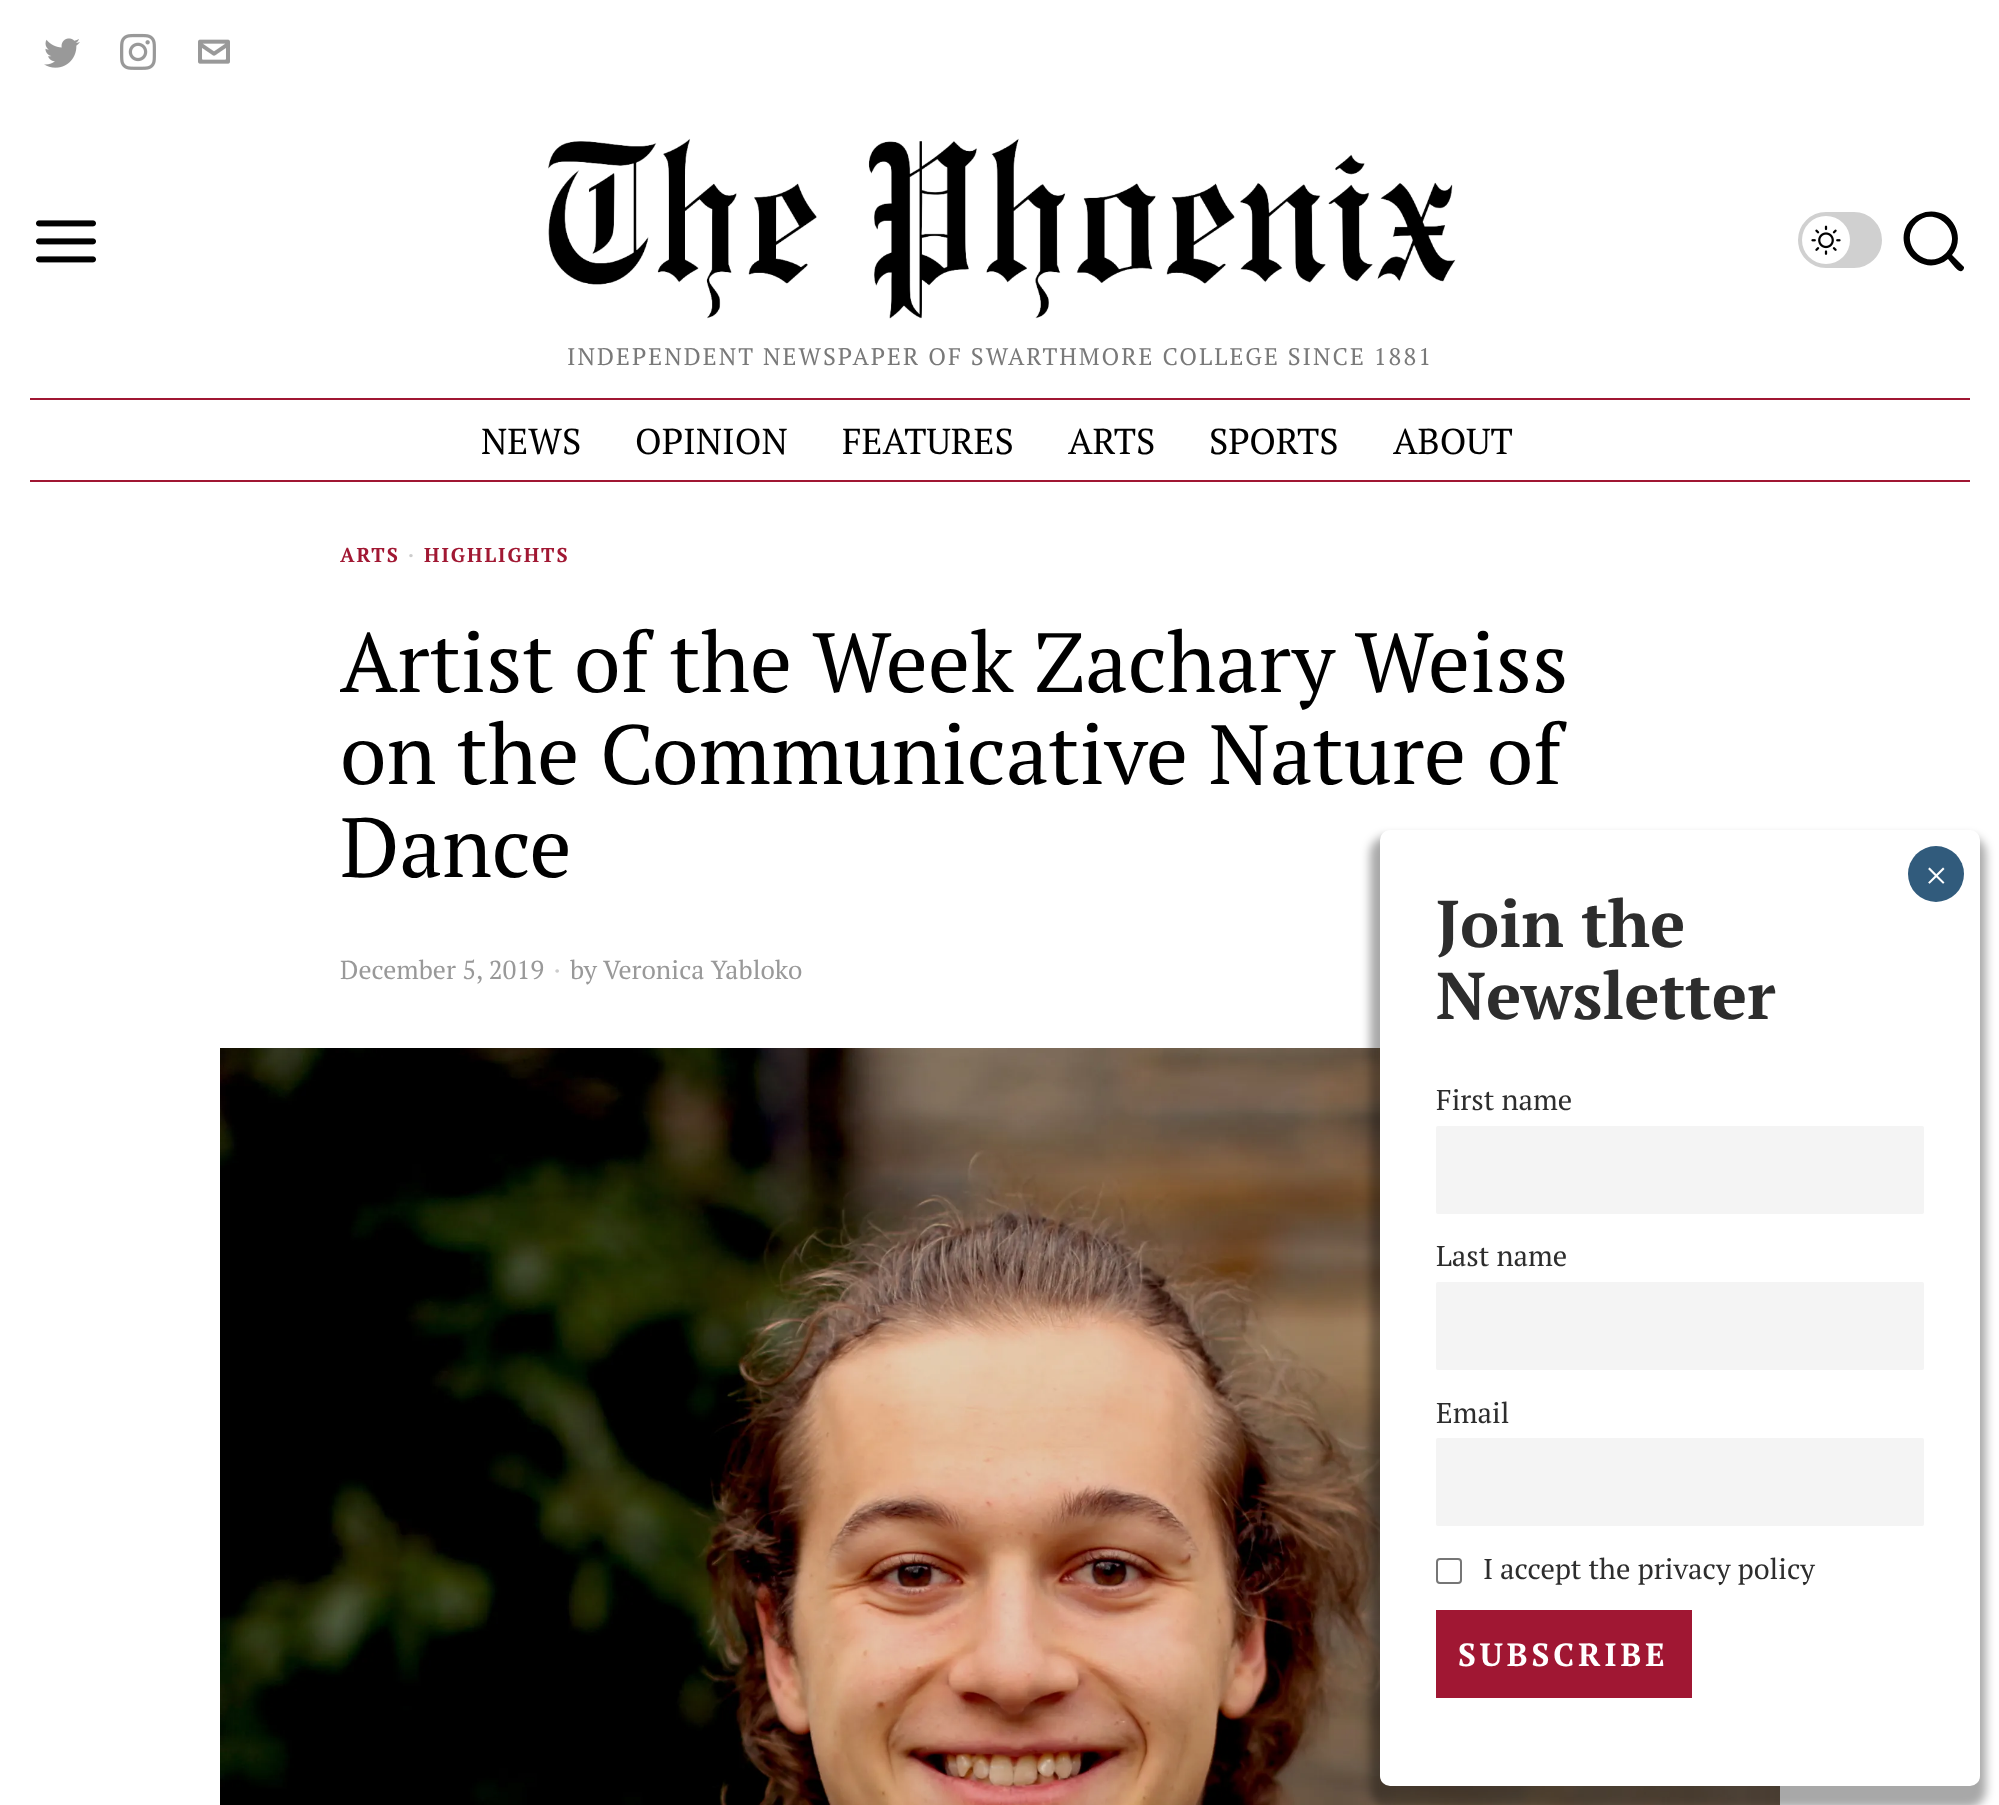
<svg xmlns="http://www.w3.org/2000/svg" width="1999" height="1805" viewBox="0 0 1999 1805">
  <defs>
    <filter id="blur1" x="-50%" y="-200%" width="200%" height="500%"><feGaussianBlur stdDeviation="5"/></filter>
  </defs>
  <rect width="100%" height="100%" fill="#ffffff"/>
  <image x="44" y="38" width="36" height="30" href="img1.png"/>
  <image x="120" y="33" width="36" height="37" href="img2.png"/>
  <image x="198" y="39" width="32" height="25" href="img3.png"/>
  <image x="36" y="220" width="60" height="43" href="img4.png"/>
  <rect x="1800" y="214" width="80" height="52" rx="26" fill="#d0d0d0" stroke="#d0d0d0" stroke-width="4"/>
  <circle cx="1826" cy="240" r="24" fill="#ffffff"/>
  <image x="1811" y="225" width="30" height="30" href="img5.png"/>
  <path d="M1946 253C1926 273 1897 243 1916 223C1935 204 1965 233 1946 253ZM1963 266L1952 255C1962 243 1959 224 1945 215C1938 211 1928 210 1920 214C1915 216 1910 220 1907 225C1893 251 1925 278 1948 259L1953 265C1955 267 1960 274 1963 270C1964 269 1964 268 1964 267Z" fill="#000000"/>
  <image x="548" y="138" width="908" height="181" href="img6.png"/>
  <text x="567" y="365" font-family="PT Serif" font-size="24" letter-spacing="2" fill="#797979">INDEPENDENT NEWSPAPER OF SWARTHMORE COLLEGE SINCE 1881</text>
  <rect x="30" y="398" width="1940" height="2" fill="#a01733"/>
  <rect x="30" y="480" width="1940" height="2" fill="#a01733"/>
  <text x="481" y="454" font-family="PT Serif" font-size="36" fill="#000000">NEWS</text>
  <text x="635" y="454" font-family="PT Serif" font-size="36" fill="#000000">OPINION</text>
  <text x="842" y="454" font-family="PT Serif" font-size="36" fill="#000000">FEATURES</text>
  <text x="1068" y="454" font-family="PT Serif" font-size="36" fill="#000000">ARTS</text>
  <text x="1209" y="454" font-family="PT Serif" font-size="36" fill="#000000">SPORTS</text>
  <text x="1393" y="454" font-family="PT Serif" font-size="36" fill="#000000">ABOUT</text>
  <text x="340" y="562" font-family="PT Serif" font-size="20" font-weight="bold" letter-spacing="2" fill="#a11833">ARTS</text>
  <text x="408" y="562" font-family="PT Serif" font-size="20" font-weight="bold" letter-spacing="2" fill="#cccccc">·</text>
  <text x="424" y="562" font-family="PT Serif" font-size="20" font-weight="bold" letter-spacing="2" fill="#a11833">HIGHLIGHTS</text>
  <text x="340" y="692" font-family="PT Serif" font-size="84" fill="#000000">Artist of the Week Zachary Weiss</text>
  <text x="340" y="784" font-family="PT Serif" font-size="84" fill="#000000">on the Communicative Nature of</text>
  <text x="340" y="877" font-family="PT Serif" font-size="84" fill="#000000">Dance</text>
  <text x="340" y="979" font-family="PT Serif" font-size="26" fill="#999999">December 5, 2019</text>
  <text x="554" y="979" font-family="PT Serif" font-size="26" fill="#cccccc">·</text>
  <text x="570" y="979" font-family="PT Serif" font-size="26" fill="#999999">by</text>
  <text x="603" y="979" font-family="PT Serif" font-size="26" fill="#999999">Veronica Yabloko</text>
  <image x="220" y="1048" width="1560" height="757" href="img7.png"/>
  <rect x="1370" y="836" width="616" height="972" rx="18" fill="#000000" fill-opacity="0.34" filter="url(#blur1)"/>
  <rect x="1380" y="830" width="600" height="956" rx="10" fill="#ffffff"/>
  <circle cx="1936" cy="874" r="28" fill="#315b7c"/>
  <text x="1925" y="889" font-family="Liberation Serif" font-size="40" fill="#ffffff">×</text>
  <text x="1436" y="947" font-family="PT Serif" font-size="66" font-weight="bold" fill="#2d2d2d">Join the</text>
  <text x="1436" y="1019" font-family="PT Serif" font-size="66" font-weight="bold" fill="#2d2d2d">Newsletter</text>
  <text x="1436" y="1110" font-family="PT Serif" font-size="28.75" fill="#2d2d2d">First name</text>
  <rect x="1436" y="1126" width="488" height="88" rx="2" fill="#f4f4f4"/>
  <text x="1436" y="1266" font-family="PT Serif" font-size="28.75" fill="#2d2d2d">Last name</text>
  <rect x="1436" y="1282" width="488" height="88" rx="2" fill="#f4f4f4"/>
  <text x="1436" y="1423" font-family="PT Serif" font-size="28.75" fill="#2d2d2d">Email</text>
  <rect x="1436" y="1438" width="488" height="88" rx="2" fill="#f4f4f4"/>
  <rect x="1437" y="1559" width="24" height="24" rx="3" fill="none" stroke="#767676" stroke-width="2"/>
  <text x="1483" y="1579" font-family="PT Serif" font-size="28.75" fill="#2d2d2d">I accept the privacy policy</text>
  <rect x="1436" y="1610" width="256" height="88" fill="#a01733"/>
  <text x="1458" y="1666" font-family="PT Serif" font-size="32" font-weight="bold" letter-spacing="4" fill="#ffffff">SUBSCRIBE</text>
</svg>
